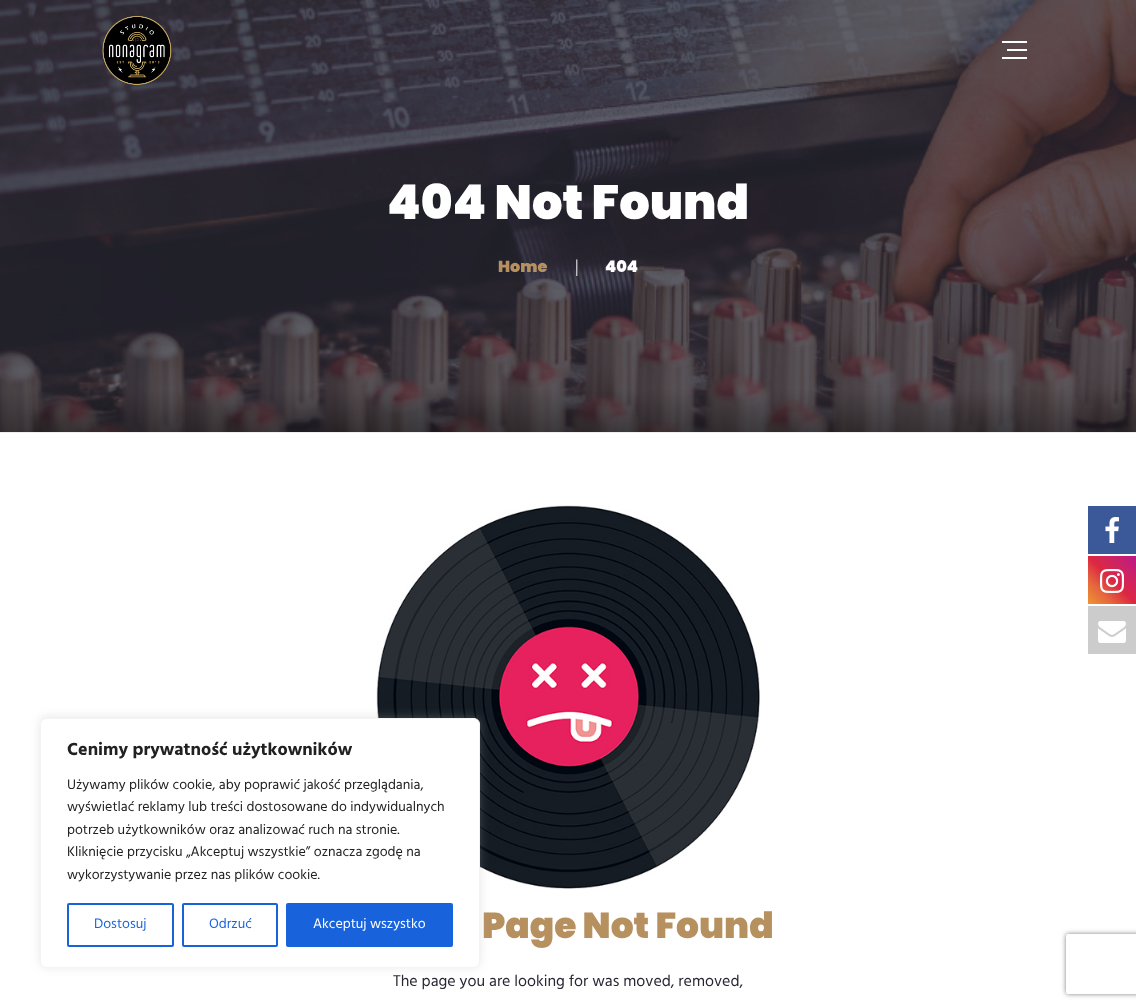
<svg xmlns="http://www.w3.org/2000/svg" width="1136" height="1008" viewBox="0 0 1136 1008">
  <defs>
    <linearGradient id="g1" gradientUnits="userSpaceOnUse" x1="1088" y1="604" x2="1136" y2="556"><stop offset="0" stop-color="#f09433"/><stop offset="0.25" stop-color="#e6683c"/><stop offset="0.5" stop-color="#dc2743"/><stop offset="0.75" stop-color="#cc2366"/><stop offset="1" stop-color="#bc1888"/></linearGradient>
    <filter id="blur1" x="-50%" y="-200%" width="200%" height="500%"><feGaussianBlur stdDeviation="5"/></filter>
    <clipPath id="clip1"><path d="M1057 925H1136V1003H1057ZM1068 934H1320C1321 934 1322 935 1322 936V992C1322 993 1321 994 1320 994H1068C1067 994 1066 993 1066 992V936C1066 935 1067 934 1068 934Z" clip-rule="evenodd"/></clipPath>
    <filter id="blur2" x="-50%" y="-200%" width="200%" height="500%"><feGaussianBlur stdDeviation="2.5"/></filter>
  </defs>
  <rect width="100%" height="100%" fill="#ffffff"/>
  <image x="0" y="0" width="1136" height="432" href="img2.png"/>
  <image x="102" y="15" width="70" height="71" href="img1.png"/>
  <rect x="1002" y="41" width="25" height="2" fill="#ffffff"/>
  <rect x="1007" y="49" width="20" height="2" fill="#ffffff"/>
  <rect x="1002" y="57" width="25" height="2" fill="#ffffff"/>
  <rect x="0" y="432" width="1136" height="1" fill="#eeeeee"/>
  <text x="387" y="219" font-family="Poppins" font-size="48" font-weight="900" fill="#ffffff">404 Not Found</text>
  <text x="498" y="272" font-family="Poppins" font-size="16" font-weight="900" fill="#b79060">Home</text>
  <text x="575" y="272" font-family="Liberation Serif" font-size="18" fill="#ffffff">|</text>
  <text x="605" y="272" font-family="Poppins" font-size="16" font-weight="900" fill="#ffffff">404</text>
  <image x="376" y="505" width="384" height="384" href="img3.png"/>
  <text x="482" y="938" font-family="Poppins" font-size="36" font-weight="900" fill="#b79060">Page Not Found</text>
  <text x="393" y="986" font-family="Hind" font-size="16" fill="#282834">The page you are looking for was moved, removed,</text>
  <rect x="1088" y="506" width="48" height="48" fill="#3b5998"/>
  <image x="1105" y="517" width="14" height="26" href="img4.png"/>
  <rect x="1088" y="556" width="48" height="48" fill="url(#g1)"/>
  <image x="1100" y="569" width="24" height="24" href="img5.png"/>
  <rect x="1088" y="606" width="48" height="48" fill="#cccccc"/>
  <image x="1098" y="621" width="28" height="22" href="img6.png"/>
  <rect x="40" y="717" width="440" height="250" rx="6" fill="#acabab" fill-opacity="0.3" filter="url(#blur1)"/>
  <rect x="40.5" y="718.5" width="439" height="249" rx="5.5" fill="#ffffff" stroke="#f4f4f4"/>
  <text x="67" y="755" font-family="Hind" font-size="18" font-weight="bold" fill="#212121">Cenimy prywatność użytkowników</text>
  <text x="67" y="789" font-family="Hind" font-size="14" fill="#212121">Używamy plików cookie, aby poprawić jakość przeglądania,</text>
  <text x="67" y="811" font-family="Hind" font-size="14" fill="#212121">wyświetlać reklamy lub treści dostosowane do indywidualnych</text>
  <text x="67" y="834" font-family="Hind" font-size="14" fill="#212121">potrzeb użytkowników oraz analizować ruch na stronie.</text>
  <text x="67" y="856" font-family="Hind" font-size="14" fill="#212121">Kliknięcie przycisku „Akceptuj wszystkie” oznacza zgodę na</text>
  <text x="67" y="879" font-family="Hind" font-size="14" fill="#212121">wykorzystywanie przez nas plików cookie.</text>
  <rect x="68" y="904" width="105" height="42" rx="1" fill="none" stroke="#1863dc" stroke-width="2"/>
  <text x="94" y="928" font-family="Hind" font-size="14" fill="#1863dc">Dostosuj</text>
  <rect x="183" y="904" width="94" height="42" rx="1" fill="none" stroke="#1863dc" stroke-width="2"/>
  <text x="209" y="928" font-family="Hind" font-size="14" fill="#1863dc">Odrzuć</text>
  <rect x="287" y="904" width="165" height="42" rx="1" fill="#1863dc" stroke="#1863dc" stroke-width="2"/>
  <text x="313" y="928" font-family="Hind" font-size="14" fill="#ffffff">Akceptuj wszystko</text>
  <g clip-path="url(#clip1)">
    <rect x="1066" y="934" width="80" height="60" rx="2" fill="#808080" filter="url(#blur2)"/>
  </g>
</svg>
